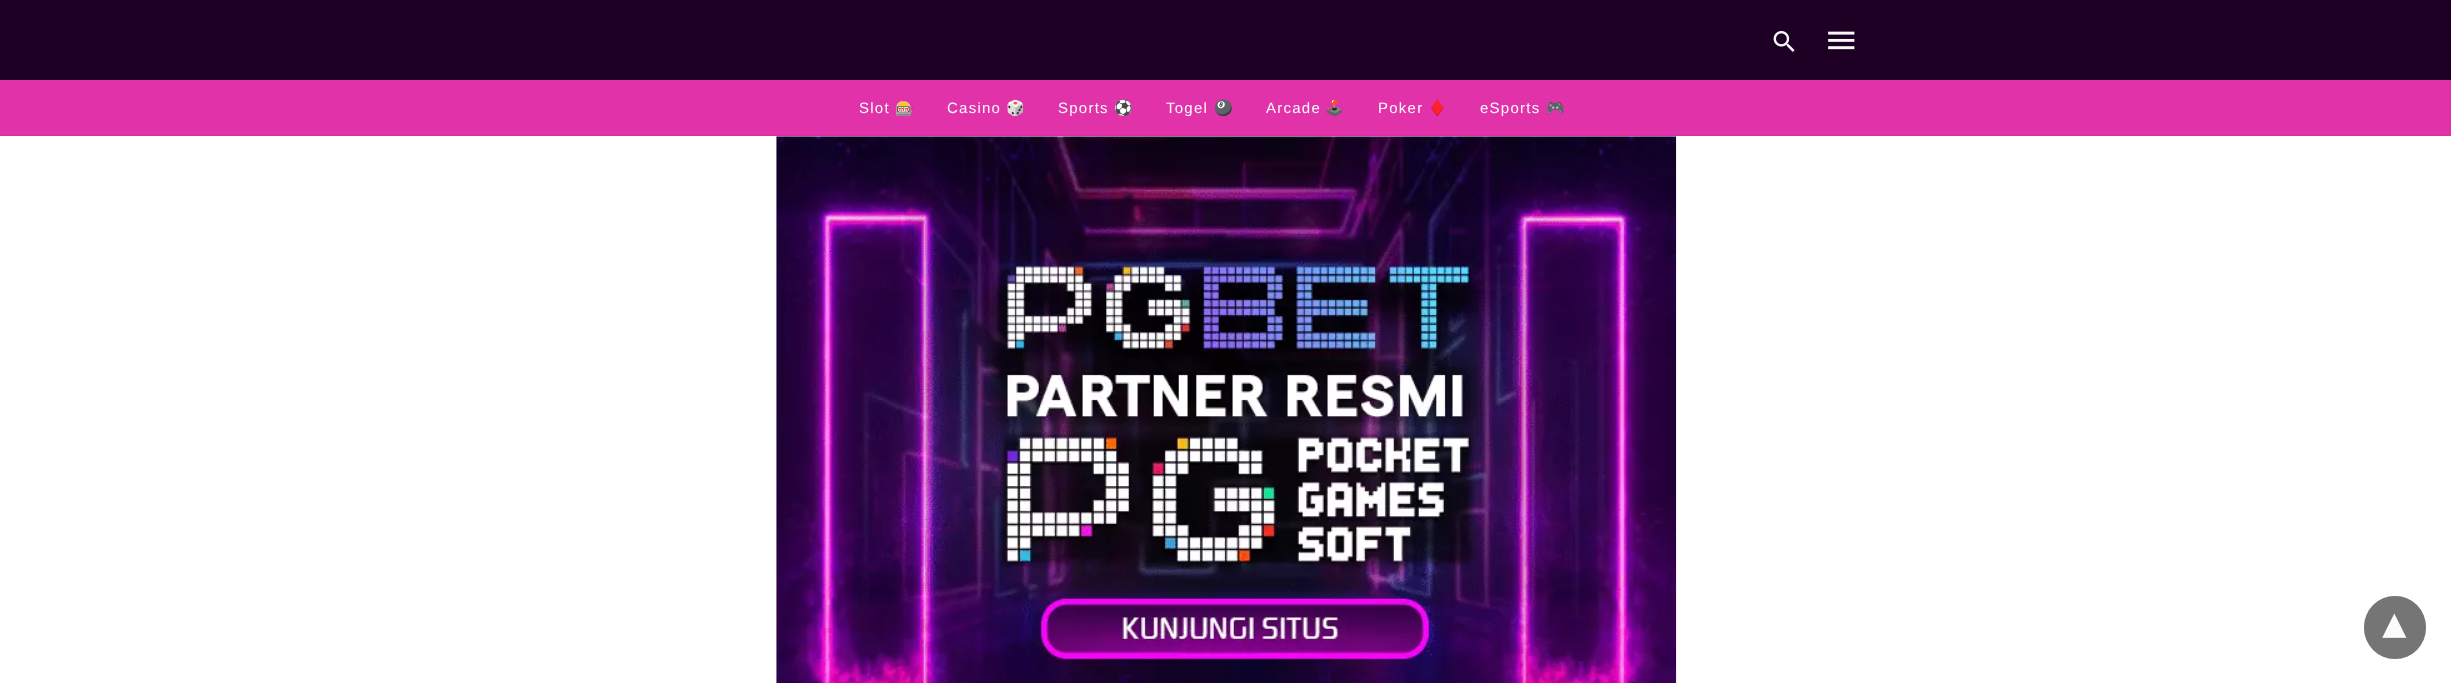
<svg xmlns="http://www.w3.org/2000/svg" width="2451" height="683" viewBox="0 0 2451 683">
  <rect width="100%" height="100%" fill="#ffffff"/>
  <rect x="0" y="0" width="2451" height="80" fill="#1e0024"/>
  <image x="1773" y="31" width="22" height="21" href="img1.png"/>
  <image x="1828" y="31" width="27" height="19" href="img2.png"/>
  <rect x="0" y="80" width="2451" height="55" fill="#e132a9"/>
  <rect x="0" y="135" width="2451" height="1" fill="#d630a1"/>
  <text x="859" y="113" font-family="Liberation Sans" font-size="15" letter-spacing="1.25" fill="#fbfbfb">Slot</text>
  <text x="895" y="113" font-family="Noto Color Emoji" font-size="15" letter-spacing="1.25" fill="#fbfbfb">🎰</text>
  <text x="947" y="113" font-family="Liberation Sans" font-size="15" letter-spacing="1.25" fill="#fbfbfb">Casino</text>
  <text x="1006" y="113" font-family="Noto Color Emoji" font-size="15" letter-spacing="1.25" fill="#fbfbfb">🎲</text>
  <text x="1058" y="113" font-family="Liberation Sans" font-size="15" letter-spacing="1.25" fill="#fbfbfb">Sports</text>
  <text x="1114" y="113" font-family="Noto Color Emoji" font-size="15" letter-spacing="1.25" fill="#fbfbfb">⚽️</text>
  <text x="1166" y="113" font-family="Liberation Sans" font-size="15" letter-spacing="1.25" fill="#fbfbfb">Togel</text>
  <text x="1214" y="113" font-family="Noto Color Emoji" font-size="15" letter-spacing="1.25" fill="#fbfbfb">🎱</text>
  <text x="1266" y="113" font-family="Liberation Sans" font-size="15" letter-spacing="1.25" fill="#fbfbfb">Arcade</text>
  <text x="1325" y="113" font-family="Noto Color Emoji" font-size="15" letter-spacing="1.25" fill="#fbfbfb">🕹️</text>
  <text x="1378" y="113" font-family="Liberation Sans" font-size="15" letter-spacing="1.25" fill="#fbfbfb">Poker</text>
  <text x="1428" y="113" font-family="Noto Color Emoji" font-size="15" letter-spacing="1.25" fill="#fbfbfb">♦️</text>
  <text x="1480" y="113" font-family="Liberation Sans" font-size="15" letter-spacing="1.25" fill="#fbfbfb">eSports</text>
  <text x="1546" y="113" font-family="Noto Color Emoji" font-size="15" letter-spacing="1.25" fill="#fbfbfb">🎮</text>
  <image x="776" y="136" width="901" height="547" href="img3.png"/>
  <rect x="2364" y="596" width="62" height="63" rx="31" fill="#a3a3a3"/>
  <text x="2406" y="614" transform="rotate(180 2406 614)" font-family="DejaVu Sans" font-size="44" font-weight="bold" fill="#fbfbfb">▾</text>
  <rect x="2364" y="596" width="62" height="63" rx="31" fill="#474747" fill-opacity="0.5"/>
  <text x="2406" y="614" transform="rotate(180 2406 614)" font-family="DejaVu Sans" font-size="44" font-weight="bold" fill="#fbfbfb">▾</text>
</svg>
